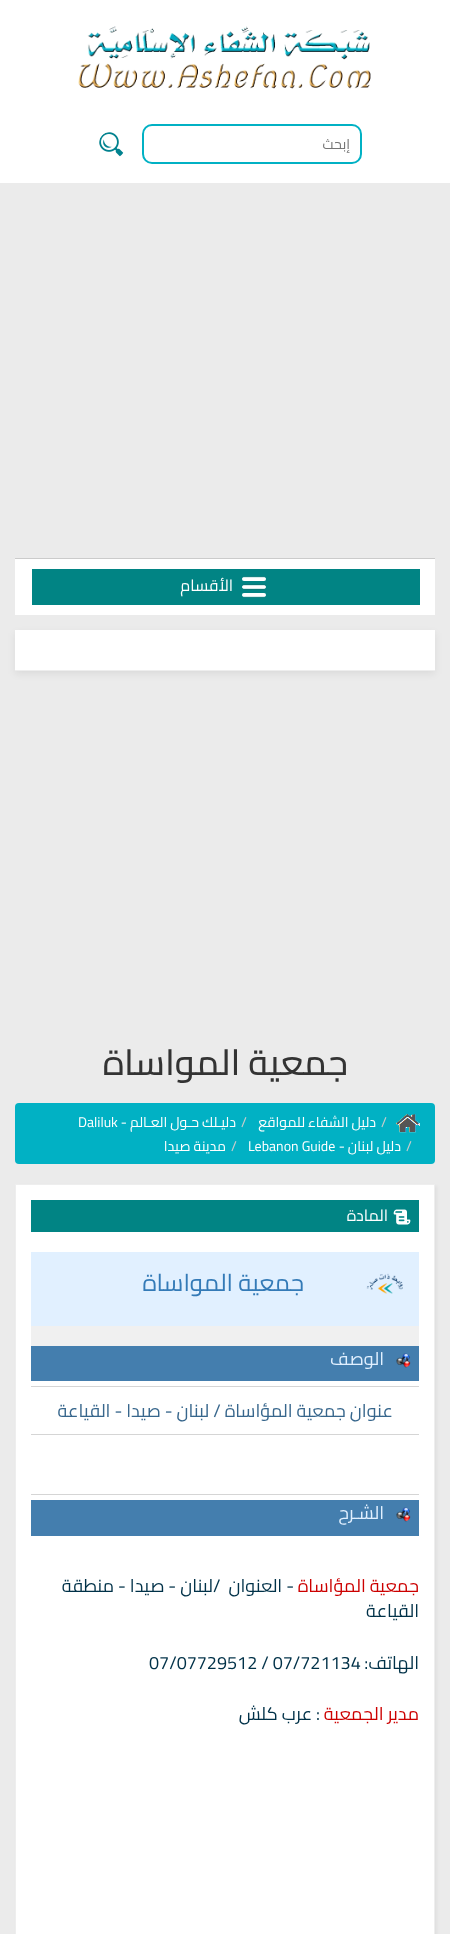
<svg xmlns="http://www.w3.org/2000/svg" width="450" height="1934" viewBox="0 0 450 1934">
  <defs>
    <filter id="blur1" x="-50%" y="-200%" width="200%" height="500%"><feGaussianBlur stdDeviation="3.5"/></filter>
    <filter id="blur2" x="-50%" y="-200%" width="200%" height="500%"><feGaussianBlur stdDeviation="1.5"/></filter>
  </defs>
  <rect width="100%" height="100%" fill="#ebebeb"/>
  <rect x="0" y="0" width="450" height="183" fill="#ffffff"/>
  <image x="78" y="26" width="293" height="63" href="img1.png"/>
  <rect x="143" y="125" width="218" height="38" rx="9" fill="none" stroke="#01b1c4" stroke-width="2"/>
  <text x="350" y="149" font-family="Cairo" font-size="14" direction="rtl" fill="#757575">إبحث</text>
  <image x="99" y="132" width="25" height="25" href="img2.png"/>
  <rect x="15" y="558" width="420" height="1" fill="#cbcbcb"/>
  <rect x="15" y="559" width="420" height="56" fill="#ffffff"/>
  <rect x="32" y="569" width="388" height="36" fill="#018484"/>
  <image x="242" y="576" width="24" height="22" href="img3.png"/>
  <text x="233" y="591" font-family="Cairo" font-size="16" direction="rtl" fill="#ffffff">الأقسام</text>
  <rect x="15" y="633" width="420" height="41" fill="#000000" fill-opacity="0.07" filter="url(#blur1)"/>
  <rect x="15" y="630" width="420" height="40" fill="#ffffff"/>
  <rect x="15" y="670" width="420" height="1" fill="#eeeeee"/>
  <text x="348" y="1075" font-family="Cairo" font-size="36" font-weight="500" direction="rtl" fill="#333333">جمعية المواساة</text>
  <rect x="15" y="1103" width="420" height="61" rx="4" fill="#01b1c4"/>
  <image x="396" y="1114" width="24" height="19" href="img4.png"/>
  <text x="381" y="1127" font-family="Cairo" font-size="14" fill="#cccccc">/</text>
  <text x="376" y="1127" font-family="Cairo" font-size="14" direction="rtl" fill="#ffffff">دليل الشفاء للمواقع</text>
  <text x="241" y="1127" font-family="Cairo" font-size="14" fill="#cccccc">/</text>
  <text x="236" y="1127" font-family="Cairo" font-size="14" direction="rtl" fill="#ffffff">دليـلك حـول العـالم -</text>
  <text x="78" y="1127" font-family="Cairo" font-size="14" fill="#ffffff">Daliluk</text>
  <text x="406" y="1151" font-family="Cairo" font-size="14" fill="#cccccc">/</text>
  <text x="401" y="1151" font-family="Cairo" font-size="14" direction="rtl" fill="#ffffff">دليل لبنان -</text>
  <text x="248" y="1151" font-family="Cairo" font-size="14" fill="#ffffff">Lebanon Guide</text>
  <text x="231" y="1151" font-family="Cairo" font-size="14" fill="#cccccc">/</text>
  <text x="226" y="1151" font-family="Cairo" font-size="14" direction="rtl" fill="#ffffff">مدينة صيدا</text>
  <rect x="17" y="1186" width="420" height="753" fill="#000000" fill-opacity="0.05" filter="url(#blur2)"/>
  <rect x="15.5" y="1184.5" width="419" height="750" fill="#ffffff" stroke="#eeeeee"/>
  <rect x="31" y="1200" width="388" height="32" fill="#018484"/>
  <image x="393" y="1209" width="18" height="16" href="img5.png"/>
  <text x="388" y="1221" font-family="Cairo" font-size="16" direction="rtl" fill="#ffffff">المادة</text>
  <rect x="31" y="1252" width="388" height="74" fill="#e1f0ff"/>
  <image x="366" y="1273" width="37" height="21" href="img6.png"/>
  <text x="304" y="1291" font-family="Cairo" font-size="24" direction="rtl" fill="#337ab7">جمعية المواساة</text>
  <rect x="31" y="1326" width="388" height="20" fill="#f0f0f0"/>
  <rect x="31" y="1346" width="388" height="35" fill="#447eae"/>
  <image x="396" y="1353" width="15" height="15" href="img7.png"/>
  <text x="384" y="1365" font-family="Cairo" font-size="18" direction="rtl" fill="#e1f0ff">الوصف</text>
  <rect x="31" y="1386" width="388" height="1" fill="#d5d5d5"/>
  <text x="393" y="1417" font-family="Cairo" font-size="18" direction="rtl" fill="#37668c">عنوان جمعية المؤاساة / لبنان - صيدا - القياعة</text>
  <rect x="31" y="1434" width="388" height="1" fill="#d5d5d5"/>
  <rect x="31" y="1494" width="388" height="1" fill="#d5d5d5"/>
  <rect x="31" y="1500" width="388" height="36" fill="#447eae"/>
  <image x="396" y="1507" width="15" height="15" href="img7.png"/>
  <text x="384" y="1519" font-family="Cairo" font-size="18" direction="rtl" fill="#e1f0ff">الشـرح</text>
  <text x="419" y="1592" font-family="Cairo" font-size="18" direction="rtl" fill="#cc0000">جمعية المؤاساة</text>
  <text x="294" y="1592" font-family="Cairo" font-size="18" direction="rtl" fill="#003148">- العنوان</text>
  <text x="213" y="1592" font-family="Cairo" font-size="18" fill="#003148">/</text>
  <text x="213" y="1592" font-family="Cairo" font-size="18" direction="rtl" fill="#003148">لبنان - صيدا - منطقة</text>
  <text x="419" y="1617" font-family="Cairo" font-size="18" direction="rtl" fill="#003148">القياعة</text>
  <text x="419" y="1669" font-family="Cairo" font-size="18" direction="rtl" fill="#003148">الهاتف:</text>
  <text x="149" y="1669" font-family="Cairo" font-size="18" fill="#003148">07/07729512 / 07/721134</text>
  <text x="419" y="1720" font-family="Cairo" font-size="18" direction="rtl" fill="#cc0000">مدير الجمعية</text>
  <text x="320" y="1720" font-family="Cairo" font-size="18" direction="rtl" fill="#003148">: عرب كلش</text>
</svg>
